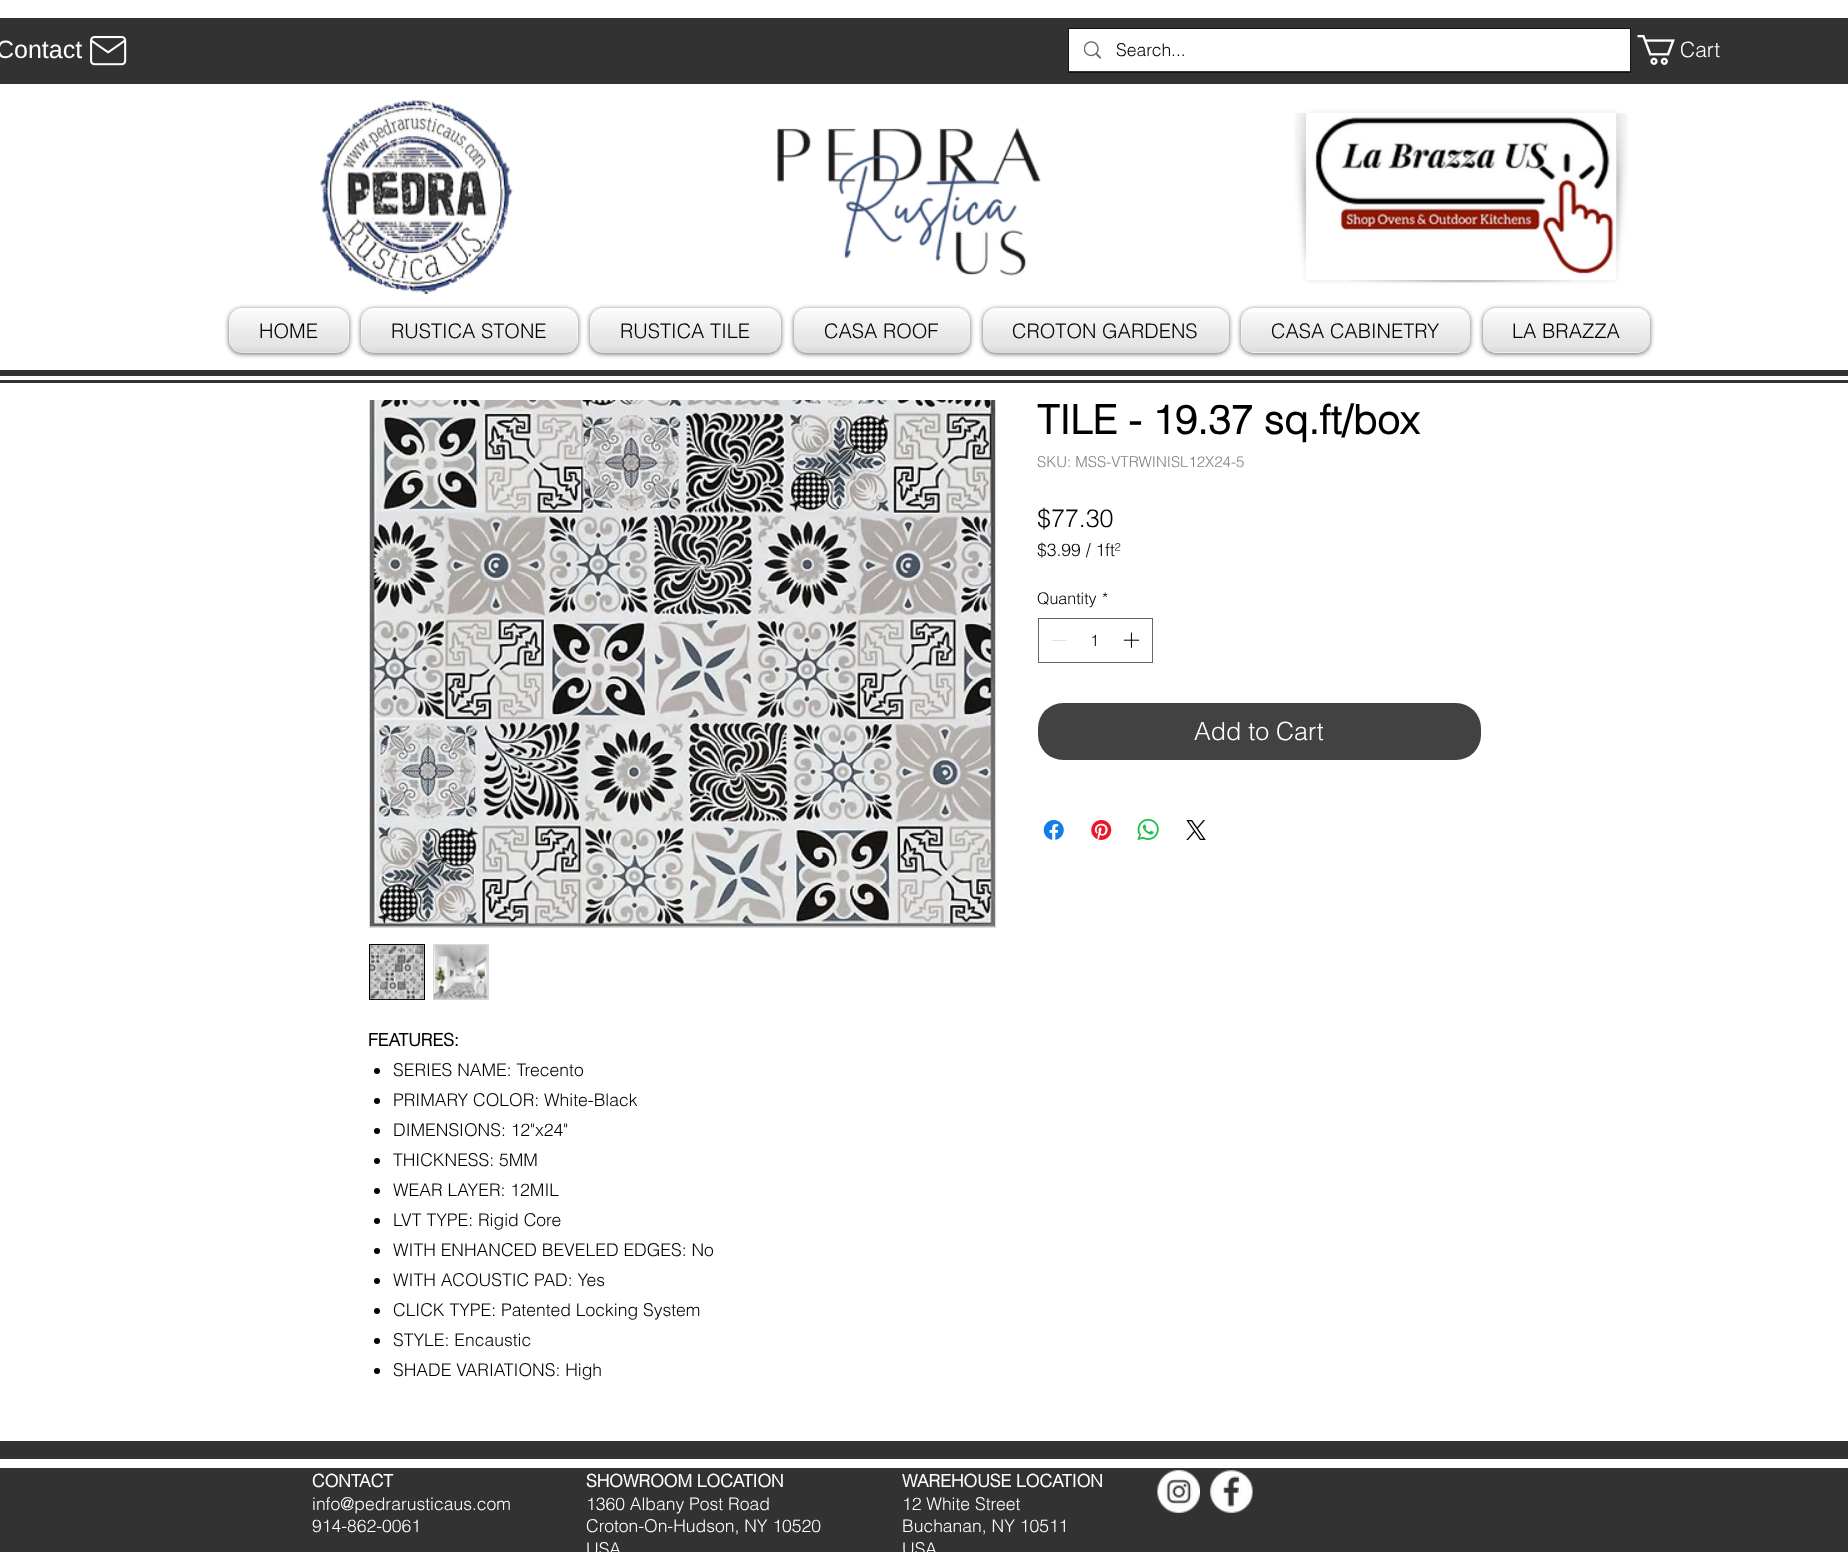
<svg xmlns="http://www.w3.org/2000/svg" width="1848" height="1552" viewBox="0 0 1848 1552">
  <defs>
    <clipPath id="clip1"><path d="M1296 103H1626V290H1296ZM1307 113H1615C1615.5 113 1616 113.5 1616 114V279C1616 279.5 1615.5 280 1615 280H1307C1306.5 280 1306 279.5 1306 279V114C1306 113.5 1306.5 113 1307 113Z" clip-rule="evenodd"/></clipPath>
    <filter id="blur1" x="-50%" y="-200%" width="200%" height="500%"><feGaussianBlur stdDeviation="3"/></filter>
    <filter id="blur2" x="-50%" y="-200%" width="200%" height="500%"><feGaussianBlur stdDeviation="2.5"/></filter>
  </defs>
  <rect width="100%" height="100%" fill="#ffffff"/>
  <rect x="0" y="18" width="1848" height="66" fill="#323232"/>
  <text x="-4" y="58" font-family="Liberation Sans" font-size="25" fill="#ffffff">Contact</text>
  <image x="90" y="36" width="37" height="30" href="img1.png"/>
  <rect x="1068.5" y="28.5" width="562" height="44" fill="none" stroke="#141414"/>
  <rect x="1069" y="29" width="561" height="42" fill="#ffffff"/>
  <image x="1084" y="41" width="17" height="18" href="img2.png"/>
  <text x="1116" y="56" font-family="helvetica" font-size="17.5" font-weight="300" fill="#000000">Search...</text>
  <image x="1637" y="35" width="38" height="30" href="img3.png"/>
  <text x="1680" y="57" font-family="helvetica" font-size="21" font-weight="300" fill="#ffffff">Cart</text>
  <image x="320" y="100" width="193" height="194" href="img4.png"/>
  <image x="777" y="127" width="264" height="149" href="img5.png"/>
  <g clip-path="url(#clip1)">
    <rect x="1306" y="113" width="310" height="167" rx="1" fill="#000000" fill-opacity="0.1" filter="url(#blur1)"/>
  </g>
  <image x="1294" y="113" width="13" height="148" href="img8.png"/>
  <image x="1306" y="116" width="308" height="158" href="img6.png"/>
  <image x="1349" y="280" width="225" height="3" href="img7.png"/>
  <image x="1616" y="113" width="12" height="147" href="img9.png"/>
  <rect x="229" y="309" width="120" height="45" rx="13" fill="#000000" fill-opacity="0.6" filter="url(#blur2)"/>
  <rect x="229" y="308" width="120" height="45" rx="13" fill="#ffffff"/>
  <image x="229" y="315" width="120" height="2" href="img10.png"/>
  <image x="228" y="311" width="121" height="42" href="img11.png"/>
  <text x="259" y="338" font-family="helvetica" font-size="20" font-weight="300" fill="#000000">HOME</text>
  <rect x="369.5" y="301.5" width="626" height="626" fill="none" stroke="#d9d9d9"/>
  <rect x="369" y="301" width="627" height="99" fill="#ffffff"/>
  <rect x="361" y="309" width="217" height="45" rx="13" fill="#000000" fill-opacity="0.6" filter="url(#blur2)"/>
  <rect x="361" y="308" width="217" height="45" rx="13" fill="#ffffff"/>
  <rect x="361" y="316" width="1" height="1" fill="#dfdfdf"/>
  <image x="361" y="311" width="217" height="42" href="img12.png"/>
  <text x="391" y="338" font-family="helvetica" font-size="20" font-weight="300" fill="#000000">RUSTICA STONE</text>
  <rect x="590" y="309" width="191" height="45" rx="13" fill="#000000" fill-opacity="0.6" filter="url(#blur2)"/>
  <rect x="590" y="308" width="191" height="45" rx="13" fill="#ffffff"/>
  <image x="590" y="311" width="191" height="42" href="img13.png"/>
  <text x="620" y="338" font-family="helvetica" font-size="20" font-weight="300" fill="#000000">RUSTICA TILE</text>
  <rect x="794" y="309" width="176" height="45" rx="13" fill="#000000" fill-opacity="0.6" filter="url(#blur2)"/>
  <rect x="794" y="308" width="176" height="45" rx="13" fill="#ffffff"/>
  <image x="793" y="311" width="177" height="42" href="img14.png"/>
  <text x="824" y="338" font-family="helvetica" font-size="20" font-weight="300" fill="#000000">CASA ROOF</text>
  <rect x="983" y="309" width="246" height="45" rx="13" fill="#000000" fill-opacity="0.6" filter="url(#blur2)"/>
  <rect x="983" y="308" width="246" height="45" rx="13" fill="#ffffff"/>
  <image x="982" y="311" width="247" height="42" href="img15.png"/>
  <text x="1012" y="338" font-family="helvetica" font-size="20" font-weight="300" fill="#000000">CROTON GARDENS</text>
  <rect x="1241" y="309" width="229" height="45" rx="13" fill="#000000" fill-opacity="0.6" filter="url(#blur2)"/>
  <rect x="1241" y="308" width="229" height="45" rx="13" fill="#ffffff"/>
  <image x="1241" y="312" width="229" height="41" href="img16.png"/>
  <text x="1271" y="338" font-family="helvetica" font-size="20" font-weight="300" fill="#000000">CASA CABINETRY</text>
  <rect x="1483" y="309" width="167" height="45" rx="13" fill="#000000" fill-opacity="0.6" filter="url(#blur2)"/>
  <rect x="1483" y="308" width="167" height="45" rx="13" fill="#ffffff"/>
  <rect x="1649" y="316" width="1" height="1" fill="#e9e9e9"/>
  <image x="1482" y="312" width="168" height="41" href="img17.png"/>
  <text x="1512" y="338" font-family="helvetica" font-size="20" font-weight="300" fill="#000000">LA BRAZZA</text>
  <rect x="0" y="370" width="1848" height="6" fill="#323232"/>
  <rect x="0" y="380" width="1848" height="3" fill="#323232"/>
  <text x="1037" y="434" font-family="helvetica" font-size="40" font-weight="bold" fill="#000000">TILE - 19.37 sq.ft/box</text>
  <text x="1037" y="467" font-family="helvetica" font-size="15" font-weight="300" fill="#828282">SKU: MSS-VTRWINISL12X24-5</text>
  <text x="1037" y="527" font-family="helvetica" font-size="25" font-weight="300" fill="#000000">$77.30</text>
  <text x="1037" y="556" font-family="helvetica" font-size="17.5" font-weight="300" fill="#000000">$3.99 / 1ft²</text>
  <text x="1037" y="604" font-family="helvetica" font-size="16" font-weight="300" fill="#000000">Quantity</text>
  <text x="1102" y="604" font-family="helvetica" font-size="16" font-weight="300" fill="#000000">*</text>
  <rect x="1038.5" y="618.5" width="114" height="44" fill="none" stroke="#666666"/>
  <rect x="1052" y="640" width="15" height="1" fill="#e3e3e3"/>
  <text x="1090" y="646" font-family="helvetica" font-size="16" font-weight="300" fill="#000000">1</text>
  <image x="1123" y="632" width="17" height="16" href="img18.png"/>
  <rect x="1038" y="703" width="443" height="57" rx="25" fill="#424242"/>
  <text x="1194" y="740" font-family="helvetica" font-size="25" font-weight="300" fill="#ffffff">Add to Cart</text>
  <image x="1043" y="820" width="21" height="20" href="img19.png"/>
  <image x="1091" y="820" width="21" height="20" href="img20.png"/>
  <image x="1137" y="818" width="22" height="23" href="img21.png"/>
  <image x="1186" y="820" width="20" height="20" href="img22.png"/>
  <image x="370" y="400" width="625" height="527" href="img23.png"/>
  <rect x="369.5" y="944.5" width="55" height="55" fill="#d9d9d9" stroke="#000000"/>
  <image x="370" y="945" width="54" height="55" href="img24.png"/>
  <rect x="433" y="944" width="56" height="56" fill="#d9d9d9"/>
  <image x="433" y="945" width="55" height="55" href="img25.png"/>
  <text x="368" y="1046" font-family="helvetica" font-size="17.5" font-weight="bold" fill="#000000">FEATURES:</text>
  <circle cx="377" cy="1071" r="3" fill="#000000"/>
  <text x="393" y="1076" font-family="helvetica" font-size="17.5" font-weight="300" fill="#000000">SERIES NAME: Trecento</text>
  <circle cx="377" cy="1101" r="3" fill="#000000"/>
  <text x="393" y="1106" font-family="helvetica" font-size="17.5" font-weight="300" fill="#000000">PRIMARY COLOR: White-Black</text>
  <circle cx="377" cy="1131" r="3" fill="#000000"/>
  <text x="393" y="1136" font-family="helvetica" font-size="17.5" font-weight="300" fill="#000000">DIMENSIONS: 12"x24"</text>
  <circle cx="377" cy="1161" r="3" fill="#000000"/>
  <text x="393" y="1166" font-family="helvetica" font-size="17.5" font-weight="300" fill="#000000">THICKNESS: 5MM</text>
  <circle cx="377" cy="1191" r="3" fill="#000000"/>
  <text x="393" y="1196" font-family="helvetica" font-size="17.5" font-weight="300" fill="#000000">WEAR LAYER: 12MIL</text>
  <circle cx="377" cy="1221" r="3" fill="#000000"/>
  <text x="393" y="1226" font-family="helvetica" font-size="17.5" font-weight="300" fill="#000000">LVT TYPE: Rigid Core</text>
  <circle cx="377" cy="1251" r="3" fill="#000000"/>
  <text x="393" y="1256" font-family="helvetica" font-size="17.5" font-weight="300" fill="#000000">WITH ENHANCED BEVELED EDGES: No</text>
  <circle cx="377" cy="1281" r="3" fill="#000000"/>
  <text x="393" y="1286" font-family="helvetica" font-size="17.5" font-weight="300" fill="#000000">WITH ACOUSTIC PAD: Yes</text>
  <circle cx="377" cy="1311" r="3" fill="#000000"/>
  <text x="393" y="1316" font-family="helvetica" font-size="17.5" font-weight="300" fill="#000000">CLICK TYPE: Patented Locking System</text>
  <circle cx="377" cy="1341" r="3" fill="#000000"/>
  <text x="393" y="1346" font-family="helvetica" font-size="17.5" font-weight="300" fill="#000000">STYLE: Encaustic</text>
  <circle cx="377" cy="1371" r="3" fill="#000000"/>
  <text x="393" y="1376" font-family="helvetica" font-size="17.5" font-weight="300" fill="#000000">SHADE VARIATIONS: High</text>
  <rect x="0" y="1441" width="1848" height="111" fill="#323232"/>
  <rect x="0" y="1459" width="1848" height="9" fill="#ffffff"/>
  <text x="312" y="1487" font-family="helvetica" font-size="17.5" font-weight="bold" fill="#ffffff">CONTACT</text>
  <text x="312" y="1510" font-family="helvetica" font-size="17.5" font-weight="300" fill="#ffffff">info@pedrarusticaus.com</text>
  <text x="312" y="1532" font-family="helvetica" font-size="17.5" font-weight="300" fill="#ffffff">914-862-0061</text>
  <text x="586" y="1487" font-family="helvetica" font-size="17.5" font-weight="bold" fill="#ffffff">SHOWROOM LOCATION</text>
  <text x="586" y="1510" font-family="helvetica" font-size="17.5" font-weight="300" fill="#ffffff">1360 Albany Post Road</text>
  <text x="586" y="1532" font-family="helvetica" font-size="17.5" font-weight="300" fill="#ffffff">Croton-On-Hudson, NY 10520</text>
  <text x="586" y="1555" font-family="helvetica" font-size="17.5" font-weight="300" fill="#ffffff">USA</text>
  <text x="902" y="1487" font-family="helvetica" font-size="17.5" font-weight="bold" fill="#ffffff">WAREHOUSE LOCATION</text>
  <text x="902" y="1510" font-family="helvetica" font-size="17.5" font-weight="300" fill="#ffffff">12 White Street</text>
  <text x="902" y="1532" font-family="helvetica" font-size="17.5" font-weight="300" fill="#ffffff">Buchanan, NY 10511</text>
  <text x="902" y="1555" font-family="helvetica" font-size="17.5" font-weight="300" fill="#ffffff">USA</text>
  <image x="1157" y="1470" width="43" height="43" href="img26.png"/>
  <image x="1210" y="1470" width="43" height="43" href="img27.png"/>
</svg>
